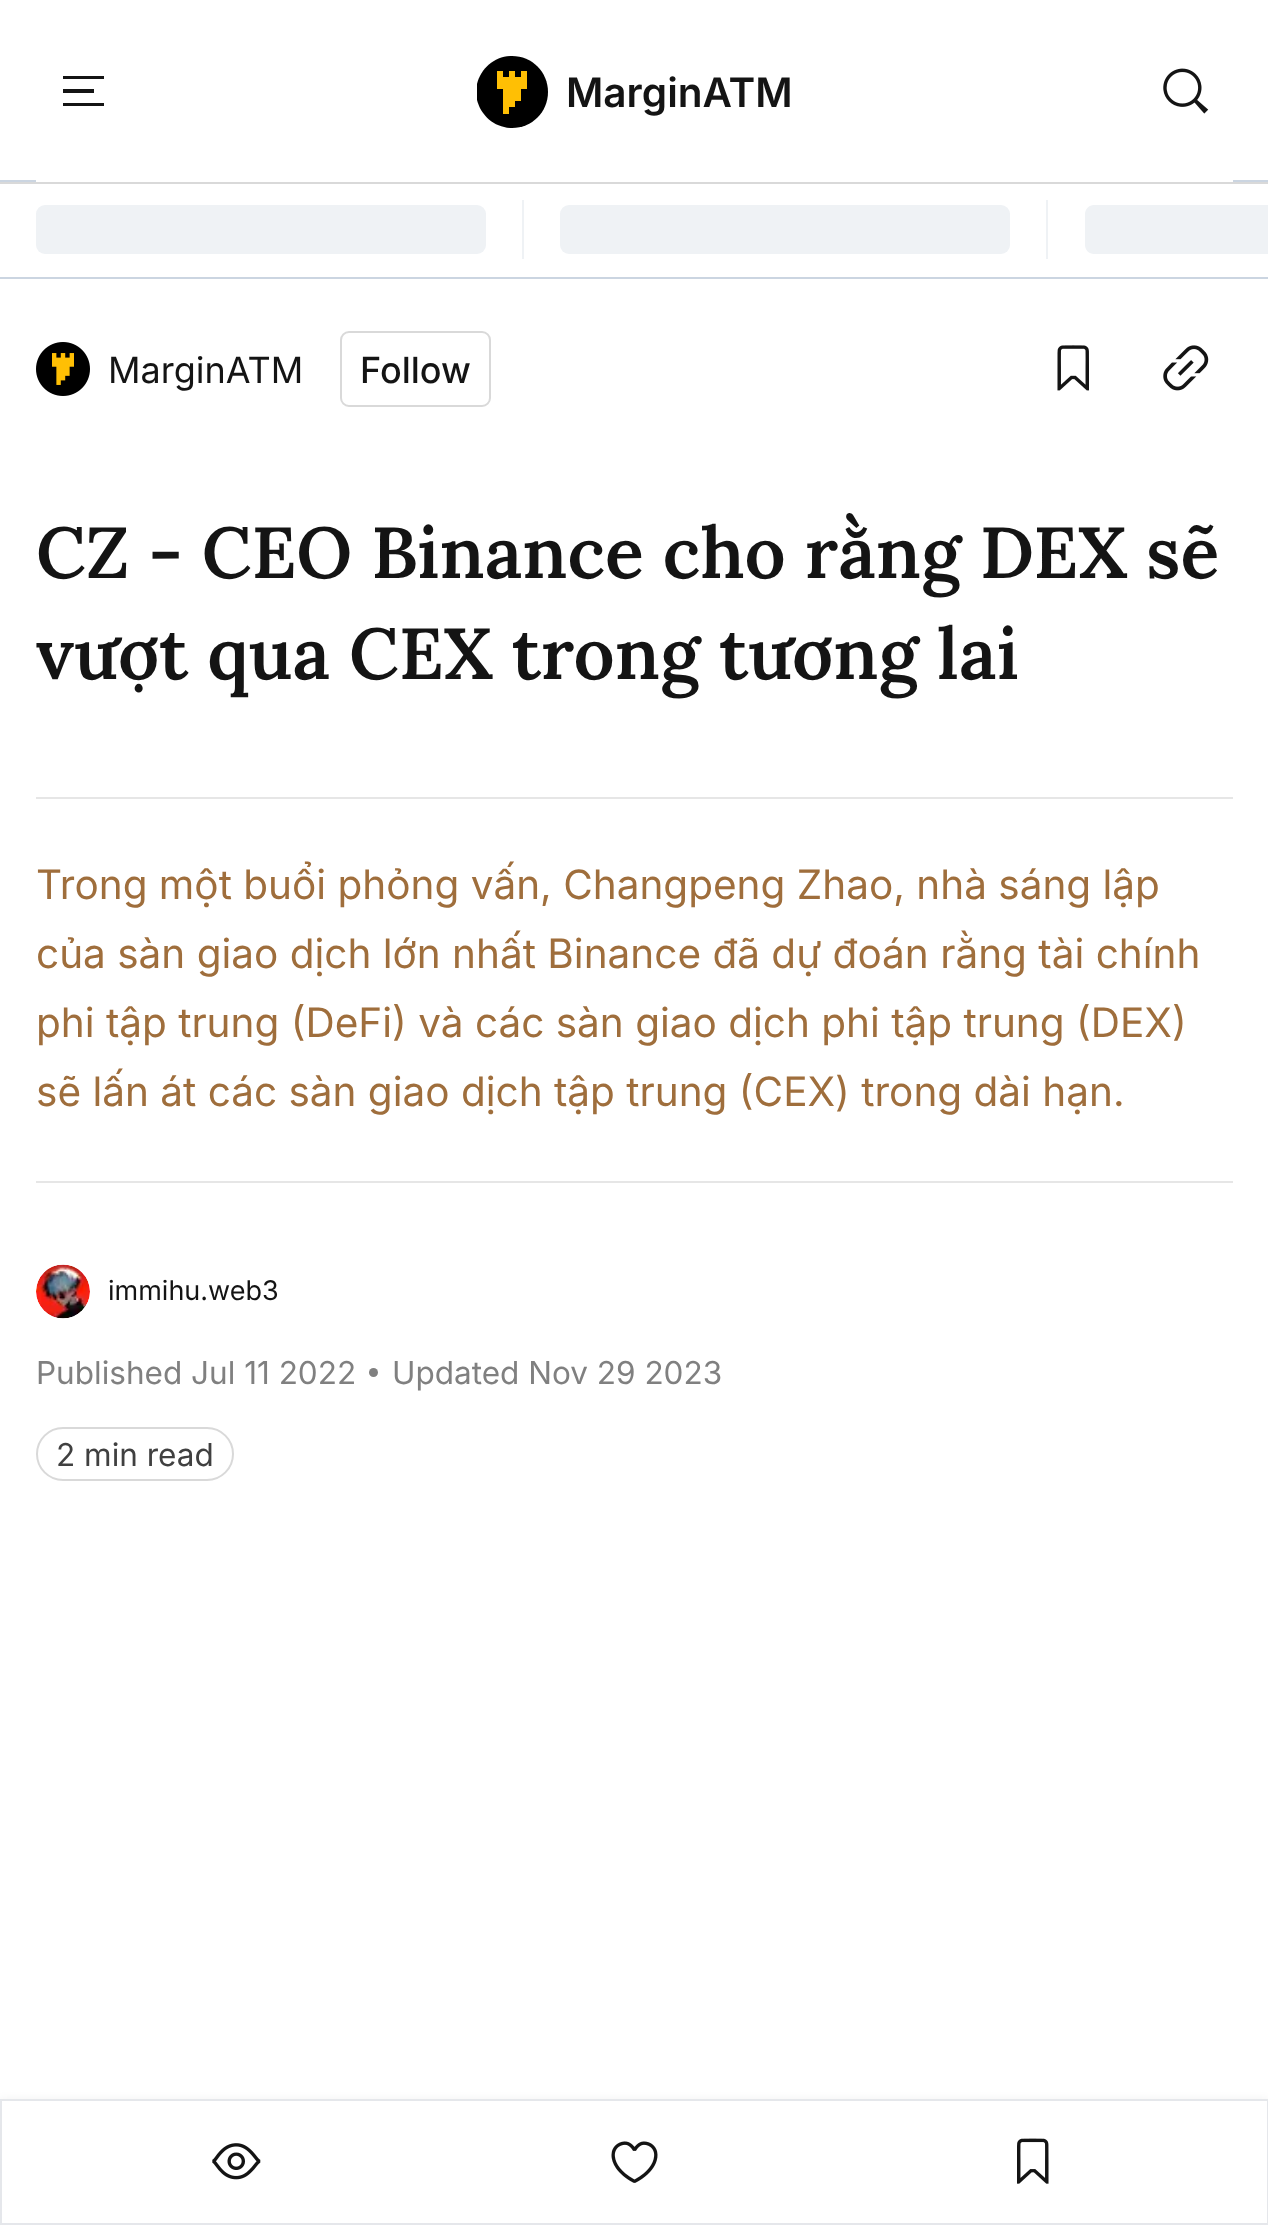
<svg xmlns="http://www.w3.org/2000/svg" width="1268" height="2225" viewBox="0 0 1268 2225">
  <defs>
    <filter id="blur1" x="-50%" y="-200%" width="200%" height="500%"><feGaussianBlur stdDeviation="4.5"/></filter>
  </defs>
  <rect width="100%" height="100%" fill="#ffffff"/>
  <rect x="0" y="180" width="1268" height="2" fill="#cbd5e1"/>
  <rect x="36" y="180" width="1197" height="2" fill="#ffffff"/>
  <path d="M63 78V79H104V76H63ZM63 91V93H94V89H63ZM63 105V106H104V103H63Z" fill="#141414"/>
  <path d="M512 56C495 56 481 68 477 84V100C481 116 495 128 512 128C532 128 548 112 548 92C548 72 532 56 512 56Z" fill="#000000"/>
  <path d="M527 71V89H521V101H515V107H509V114H503V89H497V71H503V77H509V71H515V77H521V71Z" fill="#ffbf04"/>
  <text x="566" y="107" font-family="Inter" font-size="40.5" font-weight="600" fill="#141414">MarginATM</text>
  <image x="1163" y="68" width="46" height="46" href="img1.png"/>
  <rect x="0" y="182" width="1268" height="2" fill="#d9d9d9"/>
  <rect x="0" y="277" width="1268" height="2" fill="#cbd5e1"/>
  <rect x="522" y="200" width="2" height="59" fill="#eff2f5"/>
  <rect x="36" y="205" width="450" height="49" rx="9" fill="#eff2f5"/>
  <rect x="1046" y="200" width="2" height="59" fill="#eff2f5"/>
  <rect x="560" y="205" width="450" height="49" rx="9" fill="#eff2f5"/>
  <path d="M1094 205H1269V254H1094C1089 254 1085 250 1085 245V214C1085 209 1089 205 1094 205Z" fill="#eff2f5"/>
  <image x="36" y="342" width="54" height="54" href="img2.png"/>
  <text x="108" y="383" font-family="Inter" font-size="36" fill="#141414">MarginATM</text>
  <rect x="341" y="332" width="149" height="74" rx="8" fill="none" stroke="#d9d9d9" stroke-width="2"/>
  <text x="360" y="383" font-family="Inter" font-size="36" font-weight="500" fill="#141414">Follow</text>
  <image x="1057" y="345" width="32" height="46" href="img3.png"/>
  <image x="1163" y="345" width="46" height="46" href="img4.png"/>
  <text x="36" y="578" font-family="Lora" font-size="72" font-weight="600" fill="#141414">CZ - CEO Binance cho rằng DEX sẽ</text>
  <text x="36" y="679" font-family="Lora" font-size="72" font-weight="600" fill="#141414">vượt qua CEX trong tương lai</text>
  <rect x="36" y="797" width="1197" height="2" fill="#e6e6e6"/>
  <text x="36" y="899" font-family="Inter" font-size="40.5" fill="#9f6e3c">Trong một buổi phỏng vấn, Changpeng Zhao, nhà sáng lập</text>
  <text x="36" y="968" font-family="Inter" font-size="40.5" fill="#9f6e3c">của sàn giao dịch lớn nhất Binance đã dự đoán rằng tài chính</text>
  <text x="36" y="1037" font-family="Inter" font-size="40.5" fill="#9f6e3c">phi tập trung (DeFi) và các sàn giao dịch phi tập trung (DEX)</text>
  <text x="36" y="1106" font-family="Inter" font-size="40.5" fill="#9f6e3c">sẽ lấn át các sàn giao dịch tập trung (CEX) trong dài hạn.</text>
  <rect x="36" y="1181" width="1197" height="2" fill="#e6e6e6"/>
  <image x="36" y="1264" width="54" height="55" href="img5.png"/>
  <text x="108" y="1300" font-family="Inter" font-size="27" fill="#141414">immihu.web3</text>
  <text x="36" y="1384" font-family="Inter" font-size="31.5" fill="#808080">Published Jul 11 2022</text>
  <circle cx="373.5" cy="1372.5" r="4.5" fill="#808080"/>
  <text x="392" y="1384" font-family="Inter" font-size="31.5" fill="#808080">Updated Nov 29 2023</text>
  <rect x="37" y="1428" width="196" height="52" rx="26" fill="none" stroke="#d9d9d9" stroke-width="2"/>
  <text x="56" y="1466" font-family="Inter" font-size="31.5" fill="#404040">2 min read</text>
  <rect x="0" y="2099" width="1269" height="126" fill="#000000" fill-opacity="0.05" filter="url(#blur1)"/>
  <rect x="1" y="2100" width="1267" height="124" fill="#ffffff" stroke="#e5e7eb" stroke-width="2"/>
  <image x="212" y="2143" width="49" height="37" href="img6.png"/>
  <image x="611" y="2141" width="47" height="42" href="img7.png"/>
  <image x="1017" y="2138" width="32" height="46" href="img8.png"/>
</svg>
